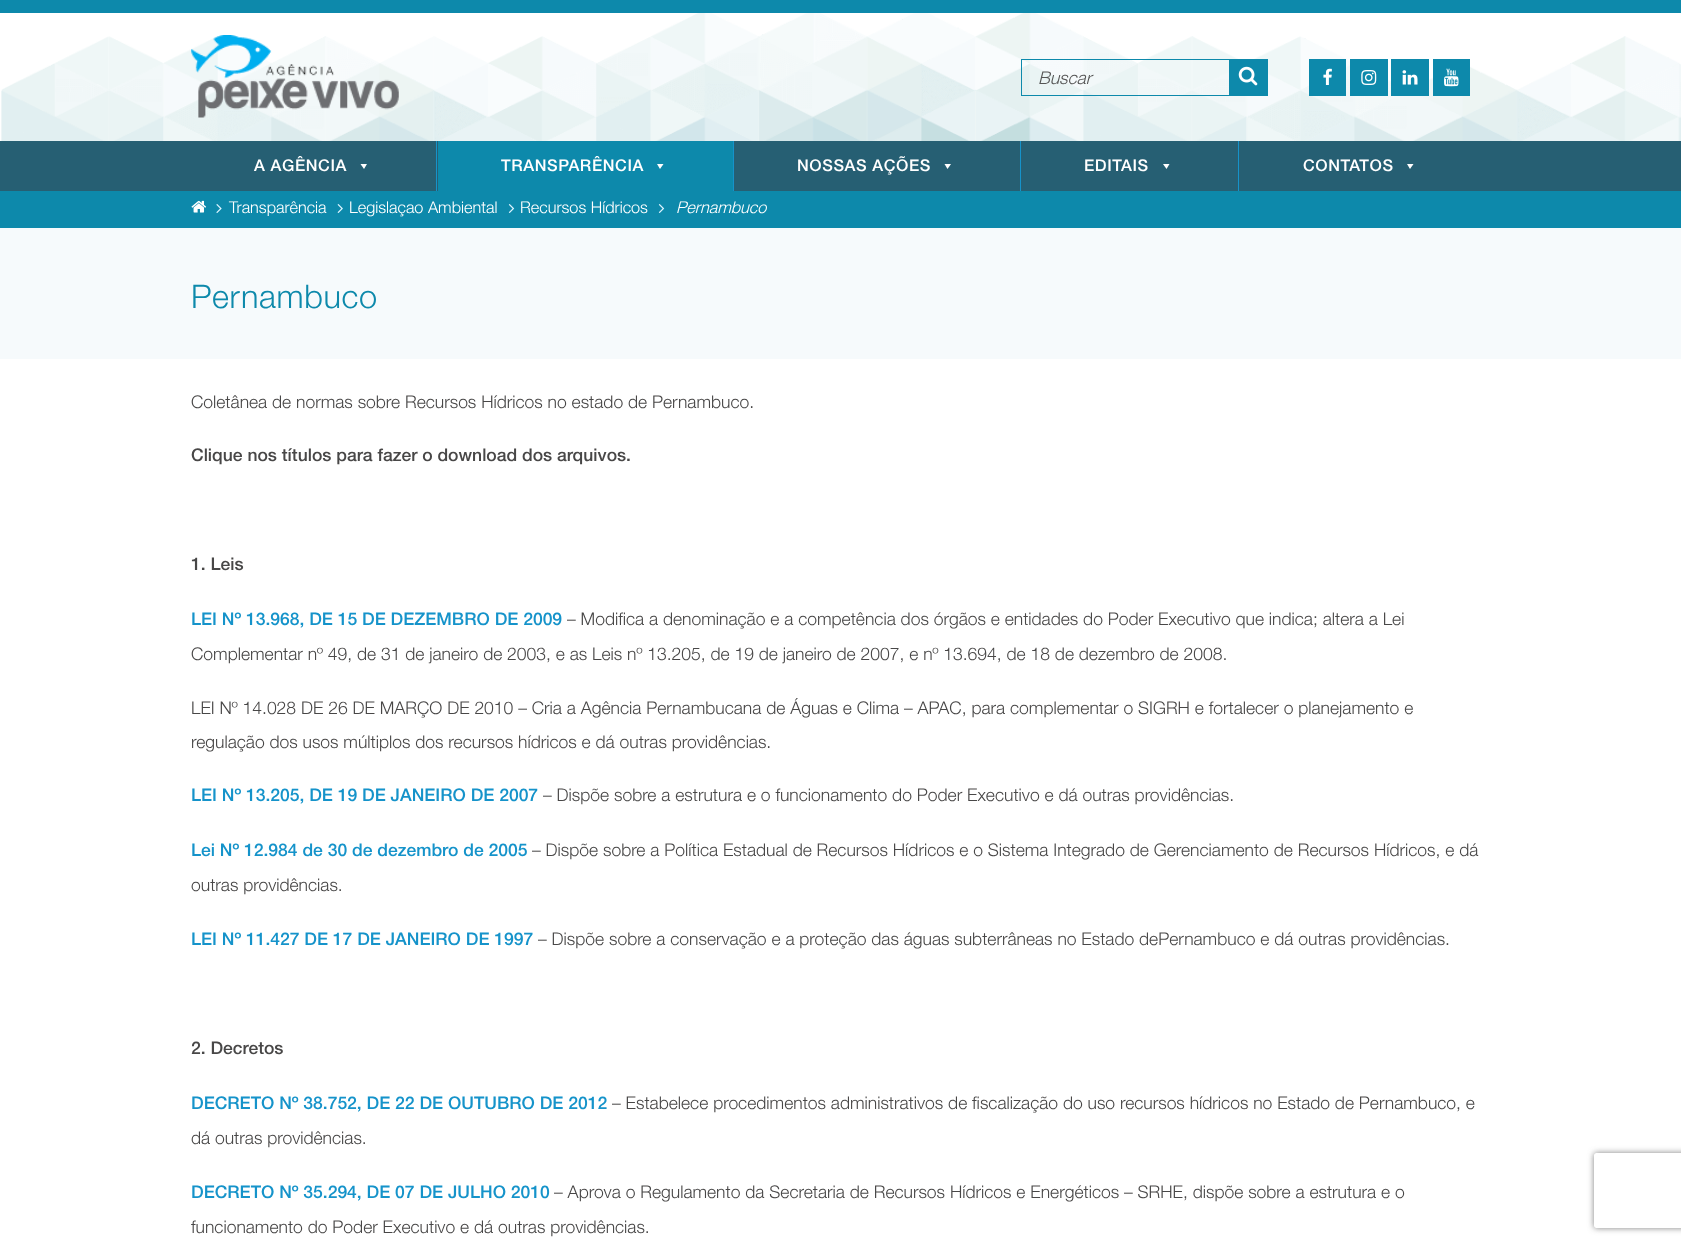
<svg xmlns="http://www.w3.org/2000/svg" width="1681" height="1245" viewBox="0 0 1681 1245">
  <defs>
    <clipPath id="clip1"><path d="M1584 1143H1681V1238H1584ZM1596.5 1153H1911.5C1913 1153 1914 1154 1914 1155.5V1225.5C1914 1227 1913 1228 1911.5 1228H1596.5C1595 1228 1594 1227 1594 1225.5V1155.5C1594 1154 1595 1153 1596.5 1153Z" clip-rule="evenodd"/></clipPath>
    <filter id="blur1" x="-50%" y="-200%" width="200%" height="500%"><feGaussianBlur stdDeviation="3"/></filter>
  </defs>
  <rect width="100%" height="100%" fill="#ffffff"/>
  <image x="1" y="13" width="1680" height="128" href="img1.png"/>
  <rect x="0" y="0" width="1681" height="13" fill="#0d89ab"/>
  <image x="191" y="35" width="208" height="83" href="img2.png"/>
  <rect x="1021.5" y="59.5" width="208" height="36" fill="none" stroke="#0d89ab"/>
  <text x="1038" y="84" font-family="Helvetica Neue" font-size="17.5" font-weight="300" font-style="italic" fill="#555555">Buscar</text>
  <rect x="1230" y="59" width="38" height="37" fill="#0d89ab"/>
  <image x="1238" y="66" width="20" height="20" href="img3.png"/>
  <rect x="1309" y="59" width="37" height="37" fill="#0d89ab"/>
  <image x="1323" y="68" width="9" height="17" href="img4.png"/>
  <rect x="1350" y="59" width="38" height="37" fill="#0d89ab"/>
  <image x="1361" y="70" width="16" height="15" href="img5.png"/>
  <rect x="1391" y="59" width="38" height="37" fill="#0d89ab"/>
  <image x="1402" y="70" width="16" height="15" href="img6.png"/>
  <rect x="1433" y="59" width="37" height="37" fill="#0d89ab"/>
  <image x="1444" y="68" width="15" height="19" href="img7.png"/>
  <rect x="0" y="141" width="1681" height="50" fill="#265f73"/>
  <text x="254" y="171" font-family="Helvetica Neue" font-size="16.25" font-weight="500" letter-spacing="0.6" fill="#ffffff">A AGÊNCIA</text>
  <path d="M367 164L364 169L360.5 164Z" fill="#ffffff"/>
  <rect x="436" y="141" width="1" height="50" fill="#1693ca"/>
  <rect x="438" y="141" width="295" height="50" fill="#0d89ab"/>
  <text x="501" y="171" font-family="Helvetica Neue" font-size="16.25" font-weight="500" letter-spacing="0.6" fill="#ffffff">TRANSPARÊNCIA</text>
  <path d="M663.5 164L660 169L657 164Z" fill="#ffffff"/>
  <rect x="733" y="141" width="1" height="50" fill="#1693ca"/>
  <text x="797" y="171" font-family="Helvetica Neue" font-size="16.25" font-weight="500" letter-spacing="0.6" fill="#ffffff">NOSSAS AÇÕES</text>
  <path d="M951 164L947.5 169L944.5 164Z" fill="#ffffff"/>
  <rect x="1020" y="141" width="1" height="50" fill="#1693ca"/>
  <text x="1084" y="171" font-family="Helvetica Neue" font-size="16.25" font-weight="500" letter-spacing="0.6" fill="#ffffff">EDITAIS</text>
  <path d="M1169.5 164L1166.5 169L1163 164Z" fill="#ffffff"/>
  <rect x="1238" y="141" width="1" height="50" fill="#1693ca"/>
  <text x="1303" y="171" font-family="Helvetica Neue" font-size="16.25" font-weight="500" letter-spacing="0.6" fill="#ffffff">CONTATOS</text>
  <path d="M1413.5 164L1410 169L1407 164Z" fill="#ffffff"/>
  <rect x="0" y="191" width="1681" height="37" fill="#0d89ab"/>
  <image x="191" y="200" width="16" height="13" href="img8.png"/>
  <image x="216" y="204" width="6" height="9" href="img9.png"/>
  <text x="229" y="213" font-family="Helvetica Neue" font-size="16.25" font-weight="300" fill="#ffffff">Transparência</text>
  <image x="337" y="204" width="6" height="9" href="img10.png"/>
  <text x="349" y="213" font-family="Helvetica Neue" font-size="16.25" font-weight="300" fill="#ffffff">Legislaçao Ambiental</text>
  <image x="508" y="204" width="7" height="9" href="img11.png"/>
  <text x="520" y="213" font-family="Helvetica Neue" font-size="16.25" font-weight="300" fill="#ffffff">Recursos Hídricos</text>
  <image x="658" y="204" width="7" height="9" href="img11.png"/>
  <text x="676" y="213" font-family="Helvetica Neue" font-size="16.25" font-weight="300" font-style="italic" fill="#ffffff">Pernambuco</text>
  <rect x="0" y="228" width="1681" height="131" fill="#f6fafc"/>
  <text x="191" y="308" font-family="Helvetica Neue" font-size="32.5" font-weight="300" letter-spacing="0.6" fill="#0d89ab">Pernambuco</text>
  <text x="191" y="408" font-family="Helvetica Neue" font-size="17.5" font-weight="300" fill="#484747">Coletânea de normas sobre Recursos Hídricos no estado de Pernambuco.</text>
  <text x="191" y="461" font-family="Helvetica Neue" font-size="17.5" font-weight="500" fill="#484747">Clique nos títulos para fazer o download dos arquivos.</text>
  <text x="191" y="570" font-family="Helvetica Neue" font-size="17.5" font-weight="500" fill="#484747">1. Leis</text>
  <text x="191" y="625" font-family="Helvetica Neue" font-size="17.5" font-weight="500" fill="#1593ca">LEI Nº 13.968, DE 15 DE DEZEMBRO DE 2009</text>
  <text x="567" y="625" font-family="Helvetica Neue" font-size="17.5" font-weight="300" fill="#484747">– Modifica a denominação e a competência dos órgãos e entidades do Poder Executivo que indica; altera a Lei</text>
  <text x="191" y="660" font-family="Helvetica Neue" font-size="17.5" font-weight="300" fill="#484747">Complementar nº 49, de 31 de janeiro de 2003, e as Leis nº 13.205, de 19 de janeiro de 2007, e nº 13.694, de 18 de dezembro de 2008.</text>
  <text x="191" y="714" font-family="Helvetica Neue" font-size="17.5" font-weight="300" fill="#484747">LEI Nº 14.028 DE 26 DE MARÇO DE 2010 – Cria a Agência Pernambucana de Águas e Clima – APAC, para complementar o SIGRH e fortalecer o planejamento e</text>
  <text x="191" y="748" font-family="Helvetica Neue" font-size="17.5" font-weight="300" fill="#484747">regulação dos usos múltiplos dos recursos hídricos e dá outras providências.</text>
  <text x="191" y="801" font-family="Helvetica Neue" font-size="17.5" font-weight="500" fill="#1593ca">LEI Nº 13.205, DE 19 DE JANEIRO DE 2007</text>
  <text x="543" y="801" font-family="Helvetica Neue" font-size="17.5" font-weight="300" fill="#484747">– Dispõe sobre a estrutura e o funcionamento do Poder Executivo e dá outras providências.</text>
  <text x="191" y="856" font-family="Helvetica Neue" font-size="17.5" font-weight="500" fill="#1593ca">Lei Nº 12.984 de 30 de dezembro de 2005</text>
  <text x="532" y="856" font-family="Helvetica Neue" font-size="17.5" font-weight="300" fill="#484747">– Dispõe sobre a Política Estadual de Recursos Hídricos e o Sistema Integrado de Gerenciamento de Recursos Hídricos, e dá</text>
  <text x="191" y="891" font-family="Helvetica Neue" font-size="17.5" font-weight="300" fill="#484747">outras providências.</text>
  <text x="191" y="945" font-family="Helvetica Neue" font-size="17.5" font-weight="500" fill="#1593ca">LEI Nº 11.427 DE 17 DE JANEIRO DE 1997</text>
  <text x="538" y="945" font-family="Helvetica Neue" font-size="17.5" font-weight="300" fill="#484747">– Dispõe sobre a conservação e a proteção das águas subterrâneas no Estado dePernambuco e dá outras providências.</text>
  <text x="191" y="1054" font-family="Helvetica Neue" font-size="17.5" font-weight="500" fill="#484747">2. Decretos</text>
  <text x="191" y="1109" font-family="Helvetica Neue" font-size="17.5" font-weight="500" fill="#1593ca">DECRETO Nº 38.752, DE 22 DE OUTUBRO DE 2012</text>
  <text x="612" y="1109" font-family="Helvetica Neue" font-size="17.5" font-weight="300" fill="#484747">– Estabelece procedimentos administrativos de fiscalização do uso recursos hídricos no Estado de Pernambuco, e</text>
  <text x="191" y="1144" font-family="Helvetica Neue" font-size="17.5" font-weight="300" fill="#484747">dá outras providências.</text>
  <text x="191" y="1198" font-family="Helvetica Neue" font-size="17.5" font-weight="500" fill="#1593ca">DECRETO Nº 35.294, DE 07 DE JULHO 2010</text>
  <text x="554" y="1198" font-family="Helvetica Neue" font-size="17.5" font-weight="300" fill="#484747">– Aprova o Regulamento da Secretaria de Recursos Hídricos e Energéticos – SRHE, dispõe sobre a estrutura e o</text>
  <text x="191" y="1233" font-family="Helvetica Neue" font-size="17.5" font-weight="300" fill="#484747">funcionamento do Poder Executivo e dá outras providências.</text>
  <g clip-path="url(#clip1)">
    <rect x="1594" y="1153" width="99" height="75" rx="2.5" fill="#808080" filter="url(#blur1)"/>
  </g>
</svg>
